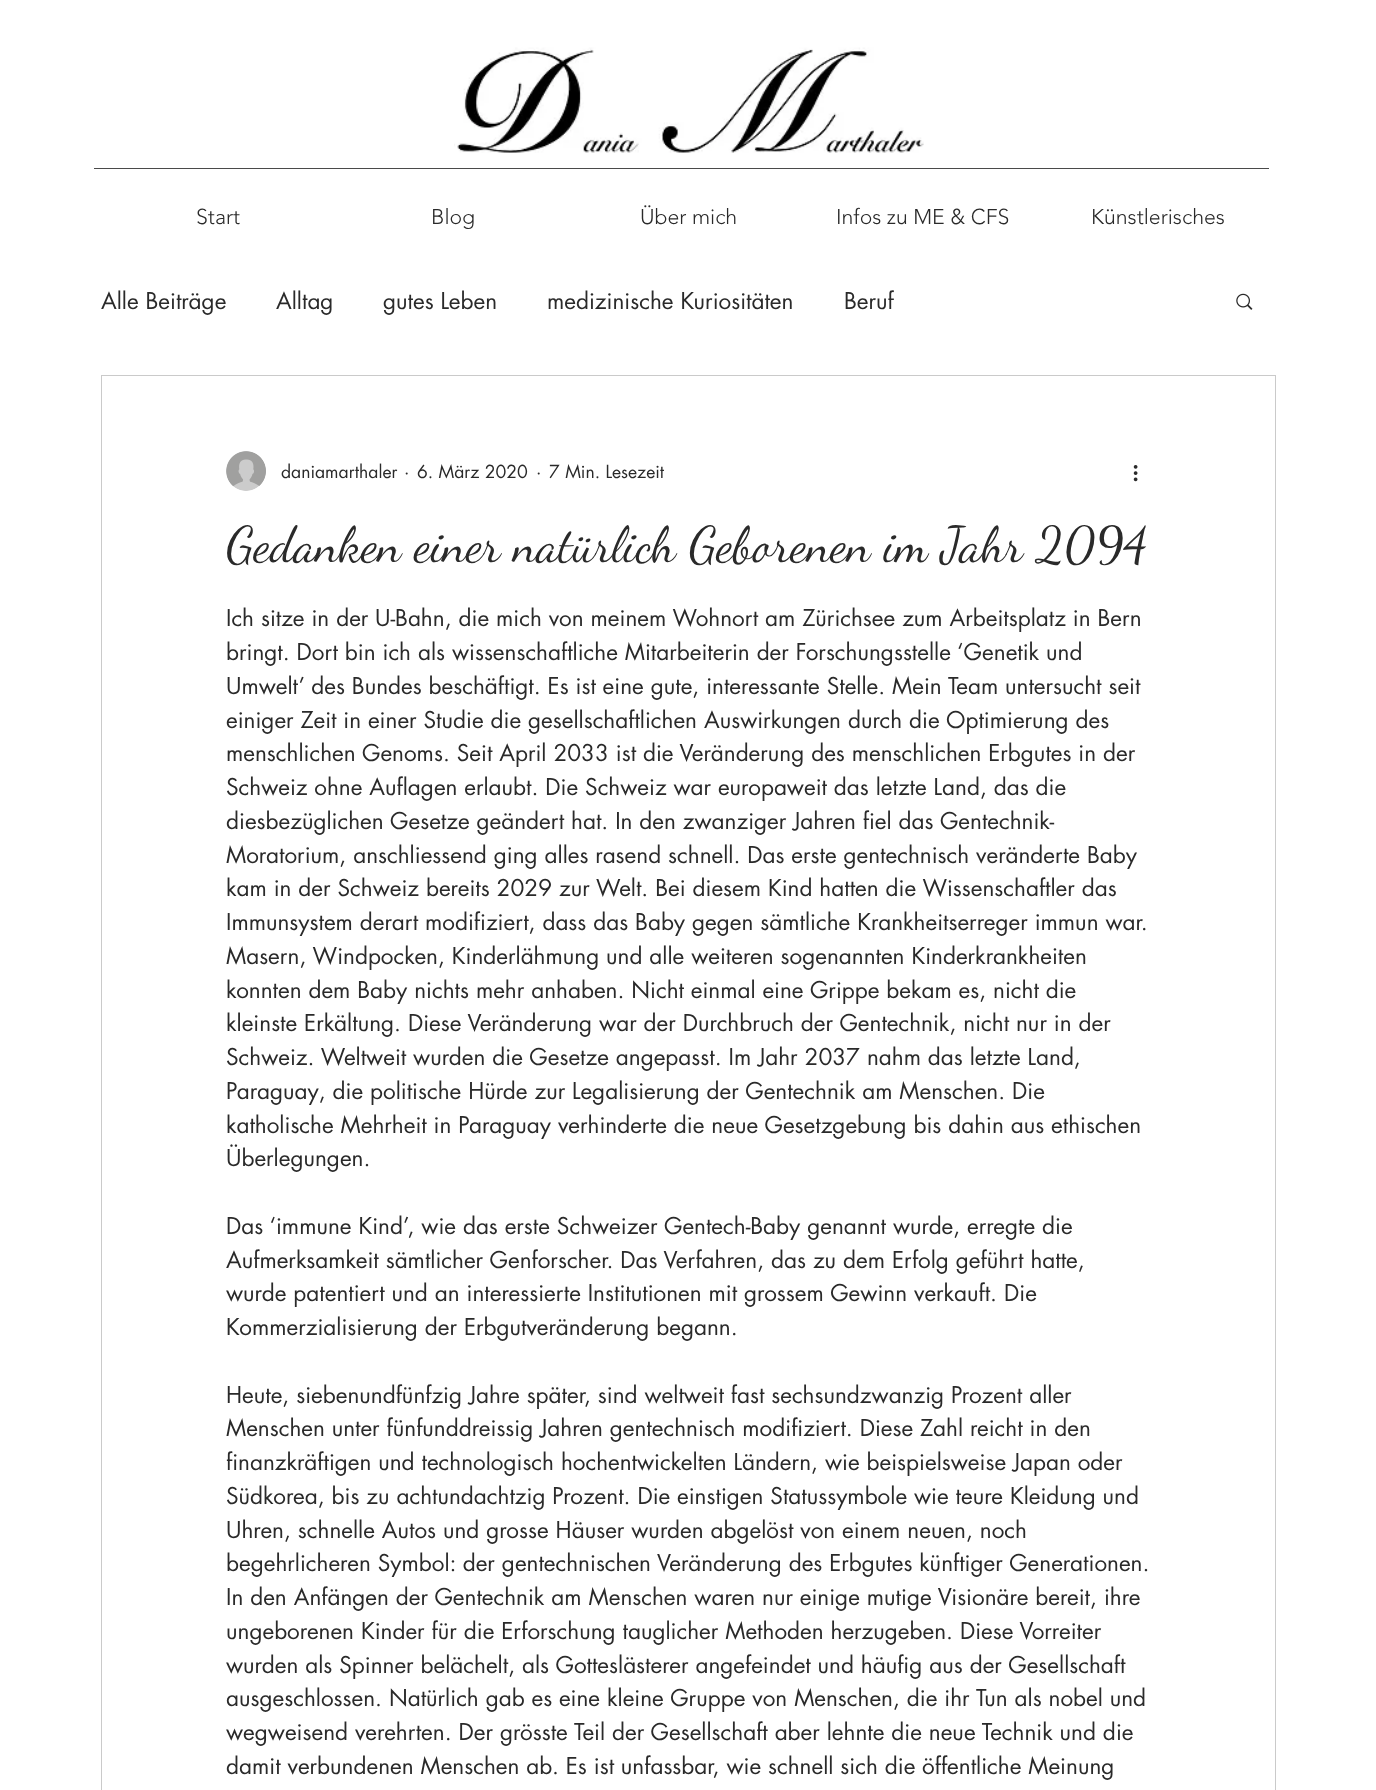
<svg xmlns="http://www.w3.org/2000/svg" width="1376" height="1790" viewBox="0 0 1376 1790">
  <rect width="100%" height="100%" fill="#ffffff"/>
  <image x="454" y="47" width="470" height="106" href="img1.png"/>
  <rect x="94" y="168" width="1175" height="1" fill="#4a4a4a"/>
  <text x="196" y="224" font-family="'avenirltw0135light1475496'" font-size="21.25" font-weight="300" fill="#2a2a2a">Start</text>
  <text x="431" y="224" font-family="'avenirltw0135light1475496'" font-size="21.25" font-weight="300" fill="#2a2a2a">Blog</text>
  <text x="640" y="224" font-family="'avenirltw0135light1475496'" font-size="21.25" font-weight="300" fill="#2a2a2a">Über mich</text>
  <text x="836" y="224" font-family="'avenirltw0135light1475496'" font-size="21.25" font-weight="300" fill="#2a2a2a">Infos zu ME &amp; CFS</text>
  <text x="1091" y="224" font-family="'avenirltw0135light1475496'" font-size="21.25" font-weight="300" fill="#2a2a2a">Künstlerisches</text>
  <text x="101" y="309" font-family="futura" font-size="22.5" fill="#2a2a2a">Alle Beiträge</text>
  <text x="276" y="309" font-family="futura" font-size="22.5" fill="#2a2a2a">Alltag</text>
  <text x="383" y="309" font-family="futura" font-size="22.5" fill="#2a2a2a">gutes Leben</text>
  <text x="547" y="309" font-family="futura" font-size="22.5" fill="#2a2a2a">medizinische Kuriositäten</text>
  <text x="844" y="309" font-family="futura" font-size="22.5" fill="#2a2a2a">Beruf</text>
  <image x="1236" y="293" width="17" height="17" href="img2.png"/>
  <rect x="101.5" y="375.5" width="1174" height="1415" fill="none" stroke="#cacaca"/>
  <image x="226" y="451" width="40" height="40" href="img3.png"/>
  <text x="281" y="478" font-family="futura" font-size="17.5" fill="#2a2a2a">daniamarthaler</text>
  <text x="404" y="478" font-family="futura" font-size="17.5" fill="#2a2a2a">·</text>
  <text x="417" y="478" font-family="futura" font-size="17.5" fill="#2a2a2a">6. März 2020</text>
  <text x="536" y="478" font-family="futura" font-size="17.5" fill="#2a2a2a">·</text>
  <text x="549" y="478" font-family="futura" font-size="17.5" fill="#2a2a2a">7 Min. Lesezeit</text>
  <image x="1133" y="465" width="5" height="17" href="img4.png"/>
  <text x="226" y="561" font-family="Dancing Script" font-size="50" fill="#2a2a2a">Gedanken einer natürlich Geborenen im Jahr 2094</text>
  <text x="226" y="626" font-family="futura" font-size="22.5" fill="#2a2a2a">Ich sitze in der U-Bahn, die mich von meinem Wohnort am Zürichsee zum Arbeitsplatz in Bern</text>
  <text x="226" y="660" font-family="futura" font-size="22.5" fill="#2a2a2a">bringt. Dort bin ich als wissenschaftliche Mitarbeiterin der Forschungsstelle ‘Genetik und</text>
  <text x="226" y="694" font-family="futura" font-size="22.5" fill="#2a2a2a">Umwelt’ des Bundes beschäftigt. Es ist eine gute, interessante Stelle. Mein Team untersucht seit</text>
  <text x="226" y="728" font-family="futura" font-size="22.5" fill="#2a2a2a">einiger Zeit in einer Studie die gesellschaftlichen Auswirkungen durch die Optimierung des</text>
  <text x="226" y="761" font-family="futura" font-size="22.5" fill="#2a2a2a">menschlichen Genoms. Seit April 2033 ist die Veränderung des menschlichen Erbgutes in der</text>
  <text x="226" y="795" font-family="futura" font-size="22.5" fill="#2a2a2a">Schweiz ohne Auflagen erlaubt. Die Schweiz war europaweit das letzte Land, das die</text>
  <text x="226" y="829" font-family="futura" font-size="22.5" fill="#2a2a2a">diesbezüglichen Gesetze geändert hat. In den zwanziger Jahren fiel das Gentechnik-</text>
  <text x="226" y="863" font-family="futura" font-size="22.5" fill="#2a2a2a">Moratorium, anschliessend ging alles rasend schnell. Das erste gentechnisch veränderte Baby</text>
  <text x="226" y="896" font-family="futura" font-size="22.5" fill="#2a2a2a">kam in der Schweiz bereits 2029 zur Welt. Bei diesem Kind hatten die Wissenschaftler das</text>
  <text x="226" y="930" font-family="futura" font-size="22.5" fill="#2a2a2a">Immunsystem derart modifiziert, dass das Baby gegen sämtliche Krankheitserreger immun war.</text>
  <text x="226" y="964" font-family="futura" font-size="22.5" fill="#2a2a2a">Masern, Windpocken, Kinderlähmung und alle weiteren sogenannten Kinderkrankheiten</text>
  <text x="226" y="998" font-family="futura" font-size="22.5" fill="#2a2a2a">konnten dem Baby nichts mehr anhaben. Nicht einmal eine Grippe bekam es, nicht die</text>
  <text x="226" y="1031" font-family="futura" font-size="22.5" fill="#2a2a2a">kleinste Erkältung. Diese Veränderung war der Durchbruch der Gentechnik, nicht nur in der</text>
  <text x="226" y="1065" font-family="futura" font-size="22.5" fill="#2a2a2a">Schweiz. Weltweit wurden die Gesetze angepasst. Im Jahr 2037 nahm das letzte Land,</text>
  <text x="226" y="1099" font-family="futura" font-size="22.5" fill="#2a2a2a">Paraguay, die politische Hürde zur Legalisierung der Gentechnik am Menschen. Die</text>
  <text x="226" y="1133" font-family="futura" font-size="22.5" fill="#2a2a2a">katholische Mehrheit in Paraguay verhinderte die neue Gesetzgebung bis dahin aus ethischen</text>
  <text x="226" y="1166" font-family="futura" font-size="22.5" fill="#2a2a2a">Überlegungen.</text>
  <text x="226" y="1234" font-family="futura" font-size="22.5" fill="#2a2a2a">Das ‘immune Kind’, wie das erste Schweizer Gentech-Baby genannt wurde, erregte die</text>
  <text x="226" y="1268" font-family="futura" font-size="22.5" fill="#2a2a2a">Aufmerksamkeit sämtlicher Genforscher. Das Verfahren, das zu dem Erfolg geführt hatte,</text>
  <text x="226" y="1301" font-family="futura" font-size="22.5" fill="#2a2a2a">wurde patentiert und an interessierte Institutionen mit grossem Gewinn verkauft. Die</text>
  <text x="226" y="1335" font-family="futura" font-size="22.5" fill="#2a2a2a">Kommerzialisierung der Erbgutveränderung begann.</text>
  <text x="226" y="1403" font-family="futura" font-size="22.5" fill="#2a2a2a">Heute, siebenundfünfzig Jahre später, sind weltweit fast sechsundzwanzig Prozent aller</text>
  <text x="226" y="1436" font-family="futura" font-size="22.5" fill="#2a2a2a">Menschen unter fünfunddreissig Jahren gentechnisch modifiziert. Diese Zahl reicht in den</text>
  <text x="226" y="1470" font-family="futura" font-size="22.5" fill="#2a2a2a">finanzkräftigen und technologisch hochentwickelten Ländern, wie beispielsweise Japan oder</text>
  <text x="226" y="1504" font-family="futura" font-size="22.5" fill="#2a2a2a">Südkorea, bis zu achtundachtzig Prozent. Die einstigen Statussymbole wie teure Kleidung und</text>
  <text x="226" y="1538" font-family="futura" font-size="22.5" fill="#2a2a2a">Uhren, schnelle Autos und grosse Häuser wurden abgelöst von einem neuen, noch</text>
  <text x="226" y="1571" font-family="futura" font-size="22.5" fill="#2a2a2a">begehrlicheren Symbol: der gentechnischen Veränderung des Erbgutes künftiger Generationen.</text>
  <text x="226" y="1605" font-family="futura" font-size="22.5" fill="#2a2a2a">In den Anfängen der Gentechnik am Menschen waren nur einige mutige Visionäre bereit, ihre</text>
  <text x="226" y="1639" font-family="futura" font-size="22.5" fill="#2a2a2a">ungeborenen Kinder für die Erforschung tauglicher Methoden herzugeben. Diese Vorreiter</text>
  <text x="226" y="1673" font-family="futura" font-size="22.5" fill="#2a2a2a">wurden als Spinner belächelt, als Gotteslästerer angefeindet und häufig aus der Gesellschaft</text>
  <text x="226" y="1706" font-family="futura" font-size="22.5" fill="#2a2a2a">ausgeschlossen. Natürlich gab es eine kleine Gruppe von Menschen, die ihr Tun als nobel und</text>
  <text x="226" y="1740" font-family="futura" font-size="22.5" fill="#2a2a2a">wegweisend verehrten. Der grösste Teil der Gesellschaft aber lehnte die neue Technik und die</text>
  <text x="226" y="1774" font-family="futura" font-size="22.5" fill="#2a2a2a">damit verbundenen Menschen ab. Es ist unfassbar, wie schnell sich die öffentliche Meinung</text>
</svg>
